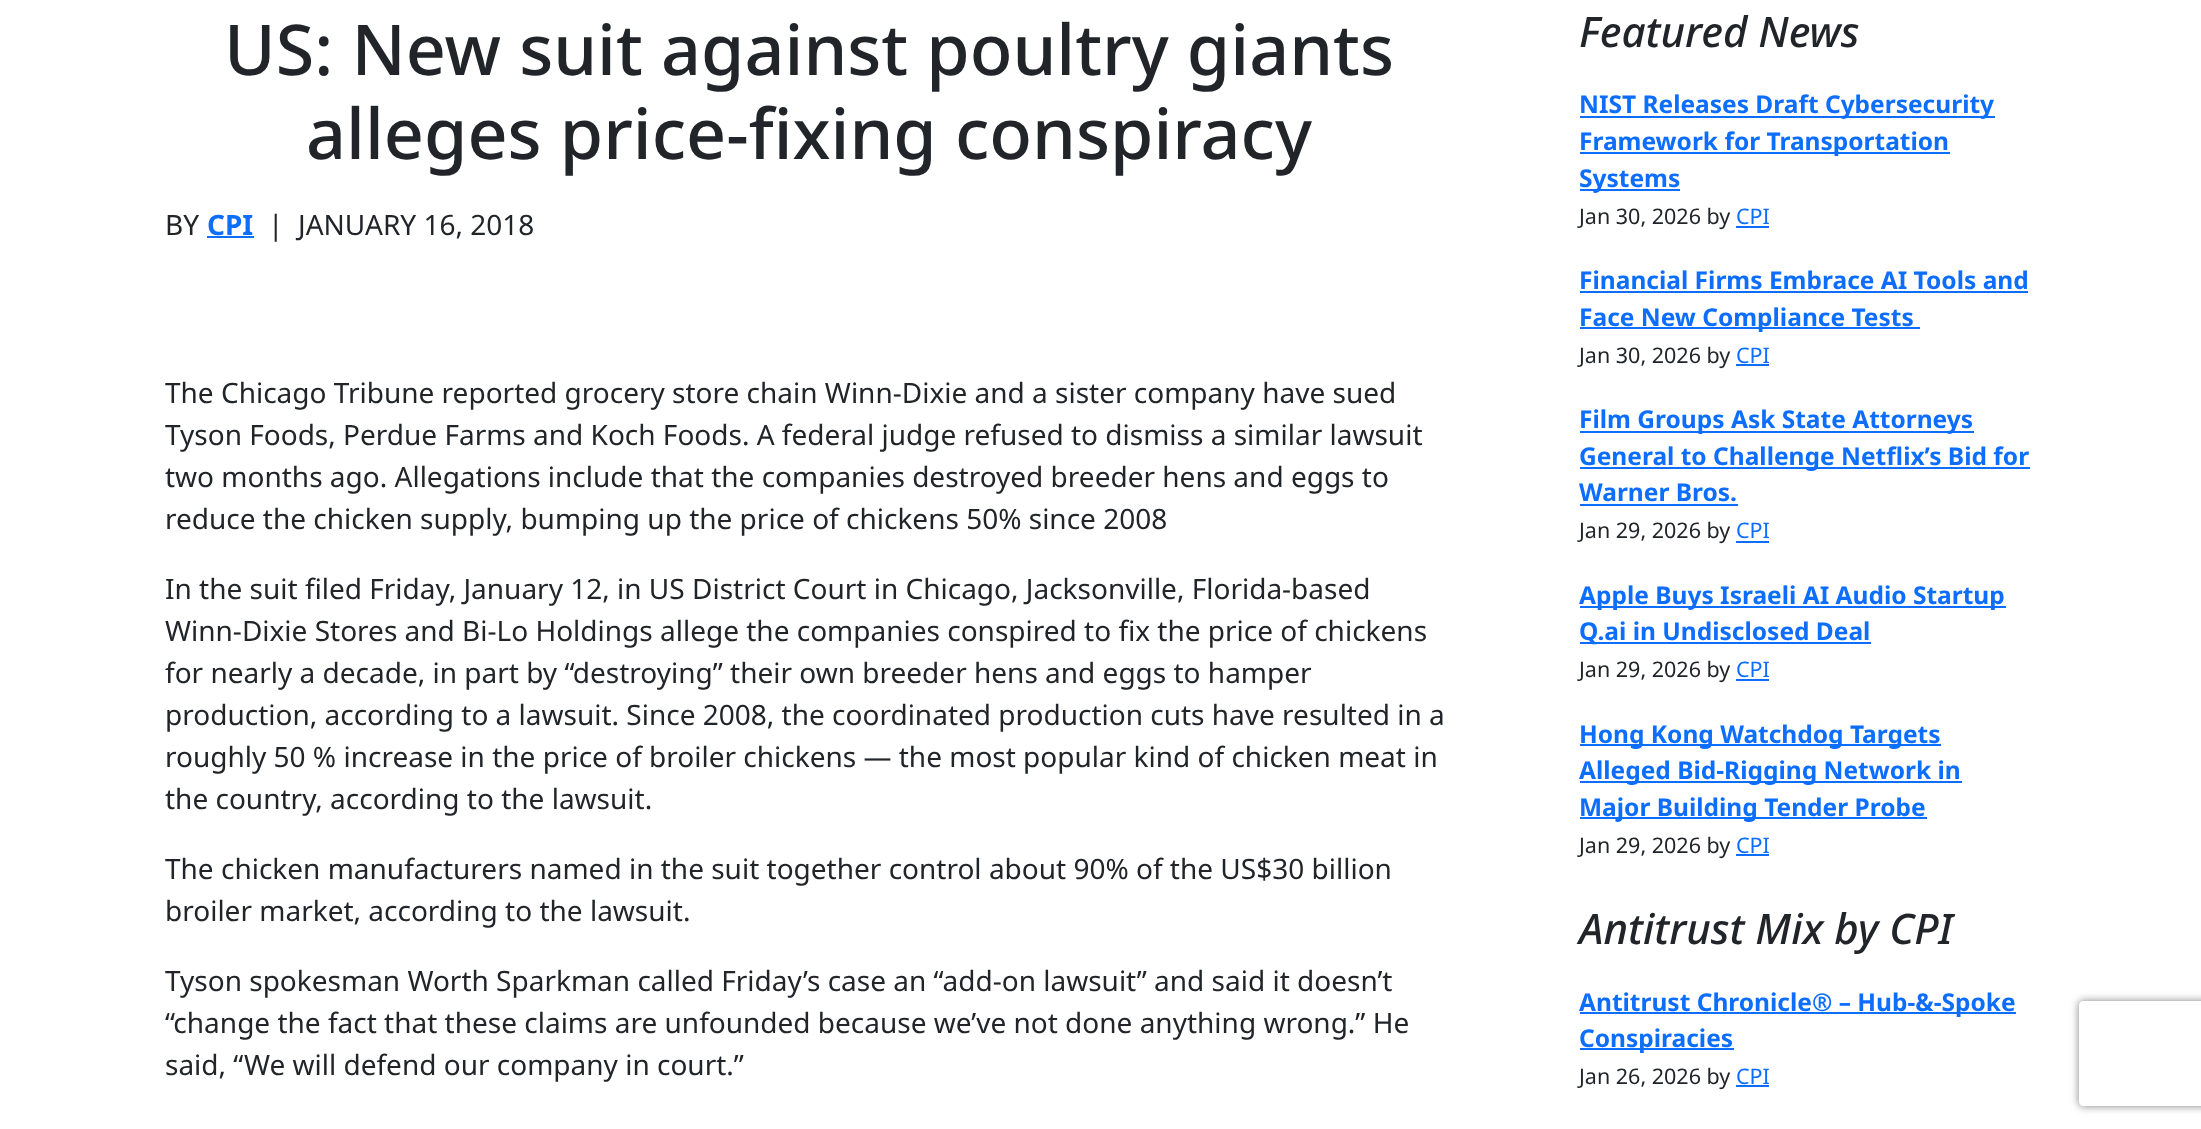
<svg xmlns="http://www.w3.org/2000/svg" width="2201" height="1129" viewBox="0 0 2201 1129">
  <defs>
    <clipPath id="clip1"><path d="M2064 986H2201V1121H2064ZM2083 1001H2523C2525 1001 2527 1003 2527 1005V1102C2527 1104 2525 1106 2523 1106H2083C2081 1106 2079 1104 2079 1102V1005C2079 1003 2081 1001 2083 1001Z" clip-rule="evenodd"/></clipPath>
    <filter id="blur1" x="-50%" y="-200%" width="200%" height="500%"><feGaussianBlur stdDeviation="4.5"/></filter>
  </defs>
  <rect width="100%" height="100%" fill="#ffffff"/>
  <text x="224" y="75" font-family="Noto Sans" font-size="70" font-weight="500" fill="#212529">US: New suit against poultry giants</text>
  <text x="306" y="159" font-family="Noto Sans" font-size="70" font-weight="500" fill="#212529">alleges price-fixing conspiracy</text>
  <text x="165" y="235" font-family="Noto Sans" font-size="28" fill="#212529">BY</text>
  <text x="207" y="235" font-family="Noto Sans" font-size="28" font-weight="bold" fill="#0d6efd">CPI</text>
  <rect x="207" y="236" width="47" height="2" fill="#0d6efd"/>
  <text x="268" y="235" font-family="Noto Sans" font-size="28" fill="#212529">|</text>
  <text x="298" y="235" font-family="Noto Sans" font-size="28" fill="#212529">JANUARY 16, 2018</text>
  <text x="165" y="403" font-family="Noto Sans" font-size="28" fill="#212529">The Chicago Tribune reported grocery store chain Winn-Dixie and a sister company have sued</text>
  <text x="165" y="445" font-family="Noto Sans" font-size="28" fill="#212529">Tyson Foods, Perdue Farms and Koch Foods. A federal judge refused to dismiss a similar lawsuit</text>
  <text x="165" y="487" font-family="Noto Sans" font-size="28" fill="#212529">two months ago. Allegations include that the companies destroyed breeder hens and eggs to</text>
  <text x="165" y="529" font-family="Noto Sans" font-size="28" fill="#212529">reduce the chicken supply, bumping up the price of chickens 50% since 2008</text>
  <text x="165" y="599" font-family="Noto Sans" font-size="28" fill="#212529">In the suit filed Friday, January 12, in US District Court in Chicago, Jacksonville, Florida-based</text>
  <text x="165" y="641" font-family="Noto Sans" font-size="28" fill="#212529">Winn-Dixie Stores and Bi-Lo Holdings allege the companies conspired to fix the price of chickens</text>
  <text x="165" y="683" font-family="Noto Sans" font-size="28" fill="#212529">for nearly a decade, in part by “destroying” their own breeder hens and eggs to hamper</text>
  <text x="165" y="725" font-family="Noto Sans" font-size="28" fill="#212529">production, according to a lawsuit. Since 2008, the coordinated production cuts have resulted in a</text>
  <text x="165" y="767" font-family="Noto Sans" font-size="28" fill="#212529">roughly 50 % increase in the price of broiler chickens — the most popular kind of chicken meat in</text>
  <text x="165" y="809" font-family="Noto Sans" font-size="28" fill="#212529">the country, according to the lawsuit.</text>
  <text x="165" y="879" font-family="Noto Sans" font-size="28" fill="#212529">The chicken manufacturers named in the suit together control about 90% of the US$30 billion</text>
  <text x="165" y="921" font-family="Noto Sans" font-size="28" fill="#212529">broiler market, according to the lawsuit.</text>
  <text x="165" y="991" font-family="Noto Sans" font-size="28" fill="#212529">Tyson spokesman Worth Sparkman called Friday’s case an “add-on lawsuit” and said it doesn’t</text>
  <text x="165" y="1033" font-family="Noto Sans" font-size="28" fill="#212529">“change the fact that these claims are unfounded because we’ve not done anything wrong.” He</text>
  <text x="165" y="1075" font-family="Noto Sans" font-size="28" fill="#212529">said, “We will defend our company in court.”</text>
  <text x="1579" y="47" font-family="Noto Sans" font-size="42" font-weight="500" font-style="italic" fill="#212529">Featured News</text>
  <rect x="1580" y="116" width="415" height="2" fill="#0d6efd"/>
  <text x="1579" y="113" font-family="Noto Sans" font-size="24.5" font-weight="bold" fill="#0d6efd">NIST Releases Draft Cybersecurity</text>
  <rect x="1580" y="152" width="370" height="2" fill="#0d6efd"/>
  <text x="1579" y="150" font-family="Noto Sans" font-size="24.5" font-weight="bold" fill="#0d6efd">Framework for Transportation</text>
  <rect x="1580" y="189" width="100" height="2" fill="#0d6efd"/>
  <text x="1579" y="187" font-family="Noto Sans" font-size="24.5" font-weight="bold" fill="#0d6efd">Systems</text>
  <text x="1579" y="224" font-family="Noto Sans" font-size="21.5" fill="#212529">Jan 30, 2026 by</text>
  <text x="1736" y="224" font-family="Noto Sans" font-size="21.5" fill="#0d6efd">CPI</text>
  <rect x="1736" y="226" width="33" height="2" fill="#0d6efd"/>
  <text x="1579" y="289" font-family="Noto Sans" font-size="24.5" font-weight="bold" fill="#0d6efd">Financial Firms Embrace AI Tools and</text>
  <rect x="1580" y="291" width="448" height="2" fill="#0d6efd"/>
  <rect x="1580" y="327" width="340" height="2" fill="#0d6efd"/>
  <text x="1579" y="326" font-family="Noto Sans" font-size="24.5" font-weight="bold" fill="#0d6efd">Face New Compliance Tests</text>
  <text x="1579" y="363" font-family="Noto Sans" font-size="21.5" fill="#212529">Jan 30, 2026 by</text>
  <text x="1736" y="363" font-family="Noto Sans" font-size="21.5" fill="#0d6efd">CPI</text>
  <rect x="1736" y="364" width="33" height="2" fill="#0d6efd"/>
  <rect x="1580" y="431" width="394" height="2" fill="#0d6efd"/>
  <text x="1579" y="428" font-family="Noto Sans" font-size="24.5" font-weight="bold" fill="#0d6efd">Film Groups Ask State Attorneys</text>
  <rect x="1580" y="467" width="450" height="2" fill="#0d6efd"/>
  <text x="1579" y="465" font-family="Noto Sans" font-size="24.5" font-weight="bold" fill="#0d6efd">General to Challenge Netflix’s Bid for</text>
  <text x="1579" y="501" font-family="Noto Sans" font-size="24.5" font-weight="bold" fill="#0d6efd">Warner Bros.</text>
  <rect x="1580" y="504" width="158" height="2" fill="#0d6efd"/>
  <text x="1579" y="538" font-family="Noto Sans" font-size="21.5" fill="#212529">Jan 29, 2026 by</text>
  <text x="1736" y="538" font-family="Noto Sans" font-size="21.5" fill="#0d6efd">CPI</text>
  <rect x="1736" y="541" width="33" height="2" fill="#0d6efd"/>
  <rect x="1580" y="606" width="426" height="2" fill="#0d6efd"/>
  <text x="1579" y="604" font-family="Noto Sans" font-size="24.5" font-weight="bold" fill="#0d6efd">Apple Buys Israeli AI Audio Startup</text>
  <rect x="1580" y="642" width="291" height="2" fill="#0d6efd"/>
  <text x="1579" y="640" font-family="Noto Sans" font-size="24.5" font-weight="bold" fill="#0d6efd">Q.ai in Undisclosed Deal</text>
  <text x="1579" y="677" font-family="Noto Sans" font-size="21.5" fill="#212529">Jan 29, 2026 by</text>
  <text x="1736" y="677" font-family="Noto Sans" font-size="21.5" fill="#0d6efd">CPI</text>
  <rect x="1736" y="679" width="33" height="2" fill="#0d6efd"/>
  <rect x="1580" y="744" width="361" height="2" fill="#0d6efd"/>
  <text x="1579" y="743" font-family="Noto Sans" font-size="24.5" font-weight="bold" fill="#0d6efd">Hong Kong Watchdog Targets</text>
  <rect x="1580" y="781" width="382" height="2" fill="#0d6efd"/>
  <text x="1579" y="779" font-family="Noto Sans" font-size="24.5" font-weight="bold" fill="#0d6efd">Alleged Bid-Rigging Network in</text>
  <rect x="1580" y="817" width="347" height="2" fill="#0d6efd"/>
  <text x="1579" y="816" font-family="Noto Sans" font-size="24.5" font-weight="bold" fill="#0d6efd">Major Building Tender Probe</text>
  <text x="1579" y="853" font-family="Noto Sans" font-size="21.5" fill="#212529">Jan 29, 2026 by</text>
  <text x="1736" y="853" font-family="Noto Sans" font-size="21.5" fill="#0d6efd">CPI</text>
  <rect x="1736" y="854" width="33" height="2" fill="#0d6efd"/>
  <text x="1579" y="944" font-family="Noto Sans" font-size="42" font-weight="500" font-style="italic" fill="#212529">Antitrust Mix by CPI</text>
  <rect x="1580" y="1012" width="436" height="2" fill="#0d6efd"/>
  <text x="1579" y="1011" font-family="Noto Sans" font-size="24.5" font-weight="bold" fill="#0d6efd">Antitrust Chronicle® – Hub-&amp;-Spoke</text>
  <rect x="1580" y="1048" width="154" height="2" fill="#0d6efd"/>
  <text x="1579" y="1047" font-family="Noto Sans" font-size="24.5" font-weight="bold" fill="#0d6efd">Conspiracies</text>
  <text x="1579" y="1084" font-family="Noto Sans" font-size="21.5" fill="#212529">Jan 26, 2026 by</text>
  <text x="1736" y="1084" font-family="Noto Sans" font-size="21.5" fill="#0d6efd">CPI</text>
  <rect x="1736" y="1085" width="33" height="2" fill="#0d6efd"/>
  <g clip-path="url(#clip1)">
    <rect x="2079" y="1001" width="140" height="105" rx="4" fill="#808080" filter="url(#blur1)"/>
  </g>
</svg>
